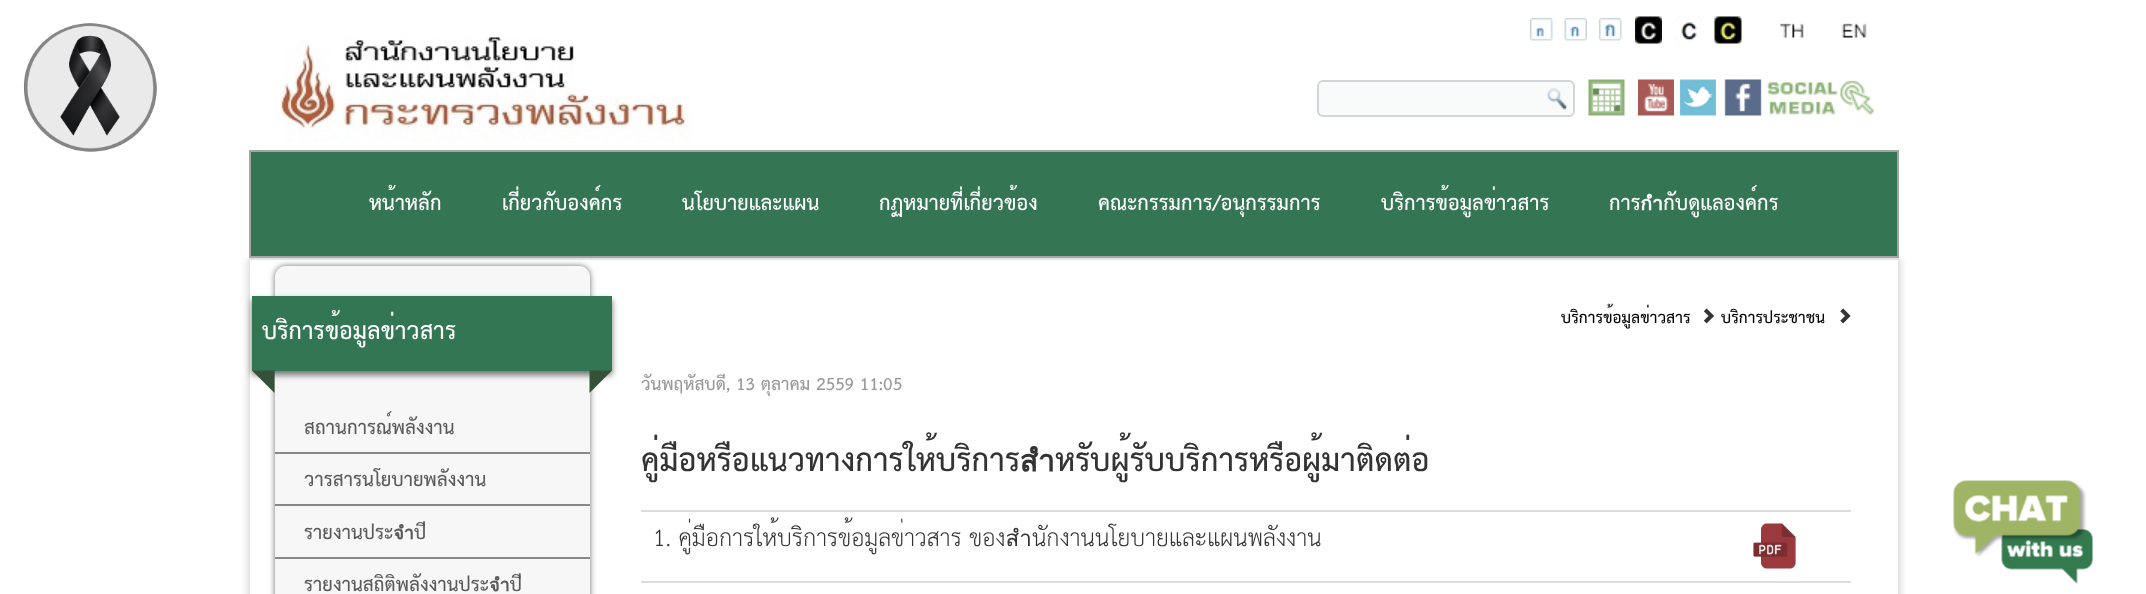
<svg xmlns="http://www.w3.org/2000/svg" width="2146" height="594" viewBox="0 0 2146 594">
  <defs>
    <clipPath id="clip1"><path d="M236 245H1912V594H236ZM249 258H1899V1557H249Z" clip-rule="evenodd"/></clipPath>
    <filter id="blur1" x="-50%" y="-200%" width="200%" height="500%"><feGaussianBlur stdDeviation="4"/></filter>
    <filter id="blur2" x="-50%" y="-200%" width="200%" height="500%"><feGaussianBlur stdDeviation="3"/></filter>
  </defs>
  <rect width="100%" height="100%" fill="#ffffff"/>
  <image x="23" y="23" width="134" height="129" href="img1.png"/>
  <image x="275" y="37" width="416" height="106" href="img2.png"/>
  <image x="1530" y="18" width="23" height="23" href="img3.png"/>
  <image x="1564" y="18" width="23" height="23" href="img4.png"/>
  <image x="1599" y="18" width="23" height="23" href="img5.png"/>
  <image x="1635" y="16" width="27" height="28" href="img6.png"/>
  <image x="1675" y="16" width="28" height="28" href="img7.png"/>
  <image x="1714" y="16" width="28" height="28" href="img8.png"/>
  <image x="1780" y="23" width="24" height="15" href="img9.png"/>
  <image x="1841" y="23" width="26" height="15" href="img10.png"/>
  <rect x="1318" y="81" width="256" height="35" rx="5" fill="#f9fafa" stroke="#d0d5da" stroke-width="2"/>
  <image x="1546" y="88" width="22" height="22" href="img11.png"/>
  <image x="1588" y="79" width="37" height="37" href="img12.png"/>
  <image x="1638" y="79" width="36" height="37" href="img13.png"/>
  <image x="1680" y="79" width="36" height="37" href="img14.png"/>
  <image x="1724" y="79" width="150" height="37" href="img15.png"/>
  <g clip-path="url(#clip1)">
    <rect x="249" y="258" width="1650" height="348" fill="#cccccc" filter="url(#blur1)"/>
  </g>
  <path d="M249 258H1899L1898 260H250Z" fill="#e1e3e4"/>
  <rect x="275" y="266" width="315" height="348" rx="11" fill="#000000" fill-opacity="0.55" filter="url(#blur2)"/>
  <rect x="244" y="251" width="1660" height="7" fill="#ffffff"/>
  <rect x="250" y="151" width="1648" height="106" fill="#347554" stroke="#a4a5a5" stroke-width="2"/>
  <text x="369" y="210" font-family="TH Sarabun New" font-size="19.5" font-weight="bold" fill="#ffffff">หน้าหลัก</text>
  <text x="502" y="210" font-family="TH Sarabun New" font-size="19.5" font-weight="bold" fill="#ffffff">เกี่ยวกับองค์กร</text>
  <text x="682" y="210" font-family="TH Sarabun New" font-size="19.5" font-weight="bold" fill="#ffffff">นโยบายและแผน</text>
  <text x="879" y="210" font-family="TH Sarabun New" font-size="19.5" font-weight="bold" fill="#ffffff">กฏหมายที่เกี่ยวข้อง</text>
  <text x="1098" y="210" font-family="TH Sarabun New" font-size="19.5" font-weight="bold" fill="#ffffff">คณะกรรมการ/อนุกรรมการ</text>
  <text x="1381" y="210" font-family="TH Sarabun New" font-size="19.5" font-weight="bold" fill="#ffffff">บริการข้อมูลข่าวสาร</text>
  <text x="1609" y="210" font-family="TH Sarabun New" font-size="19.5" font-weight="bold" fill="#ffffff">การกำกับดูแลองค์กร</text>
  <path d="M1899 258V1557H1898V260Z" fill="#6b7478" fill-opacity="0.2"/>
  <path d="M249 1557V258L250 260V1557Z" fill="#6b7478" fill-opacity="0.2"/>
  <rect x="275" y="266" width="315" height="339" rx="11" fill="#f7f7f7"/>
  <rect x="252" y="300" width="360" height="75" fill="#000000" fill-opacity="0.55" filter="url(#blur2)"/>
  <rect x="252" y="296" width="360" height="75" fill="#337654"/>
  <text x="262" y="339" font-family="TH Sarabun New" font-size="22.5" font-weight="bold" fill="#ffffff">บริการข้อมูลข่าวสาร</text>
  <path d="M252 370.5H274.5V393Z" fill="#36513a"/>
  <path d="M589.5 370.5H612L589.5 393Z" fill="#36513a"/>
  <rect x="275" y="452" width="315" height="2" fill="#888888"/>
  <text x="304" y="434" font-family="TH Sarabun New" font-size="18" font-weight="bold" fill="#5a5a5a">สถานการณ์พลังงาน</text>
  <rect x="275" y="504" width="315" height="2" fill="#888888"/>
  <text x="304" y="486" font-family="TH Sarabun New" font-size="18" font-weight="bold" fill="#5a5a5a">วารสารนโยบายพลังงาน</text>
  <rect x="275" y="557" width="315" height="2" fill="#888888"/>
  <text x="304" y="539" font-family="TH Sarabun New" font-size="18" font-weight="bold" fill="#5a5a5a">รายงานประจำปี</text>
  <text x="304" y="591" font-family="TH Sarabun New" font-size="18" font-weight="bold" fill="#5a5a5a">รายงานสถิติพลังงานประจำปี</text>
  <text x="1561" y="323" font-family="TH Sarabun New" font-size="15" font-weight="bold" fill="#000000">บริการข้อมูลข่าวสาร</text>
  <image x="1703" y="308" width="11" height="16" href="img16.png"/>
  <text x="1721" y="323" font-family="TH Sarabun New" font-size="15" font-weight="bold" fill="#000000">บริการประชาชน</text>
  <image x="1840" y="308" width="11" height="16" href="img17.png"/>
  <text x="641" y="390" font-family="TH Sarabun New" font-size="16.5" font-weight="bold" fill="#999999">วันพฤหัสบดี, 13 ตุลาคม 2559 11:05</text>
  <text x="641" y="471" font-family="TH Sarabun New" font-size="30" font-weight="bold" fill="#333333">คู่มือหรือแนวทางการให้บริการสำหรับผู้รับบริการหรือผู้มาติดต่อ</text>
  <rect x="641" y="510" width="1210" height="2" fill="#dddddd"/>
  <image x="1753" y="523" width="43" height="46" href="img18.png"/>
  <text x="653" y="546" font-family="TH Sarabun New" font-size="22.5" fill="#333333">1. คู่มือการให้บริการข้อมูลข่าวสาร ของสำนักงานนโยบายและแผนพลังงาน</text>
  <rect x="641" y="581" width="1210" height="2" fill="#dddddd"/>
  <image x="1953" y="480" width="140" height="104" href="img19.png"/>
</svg>
